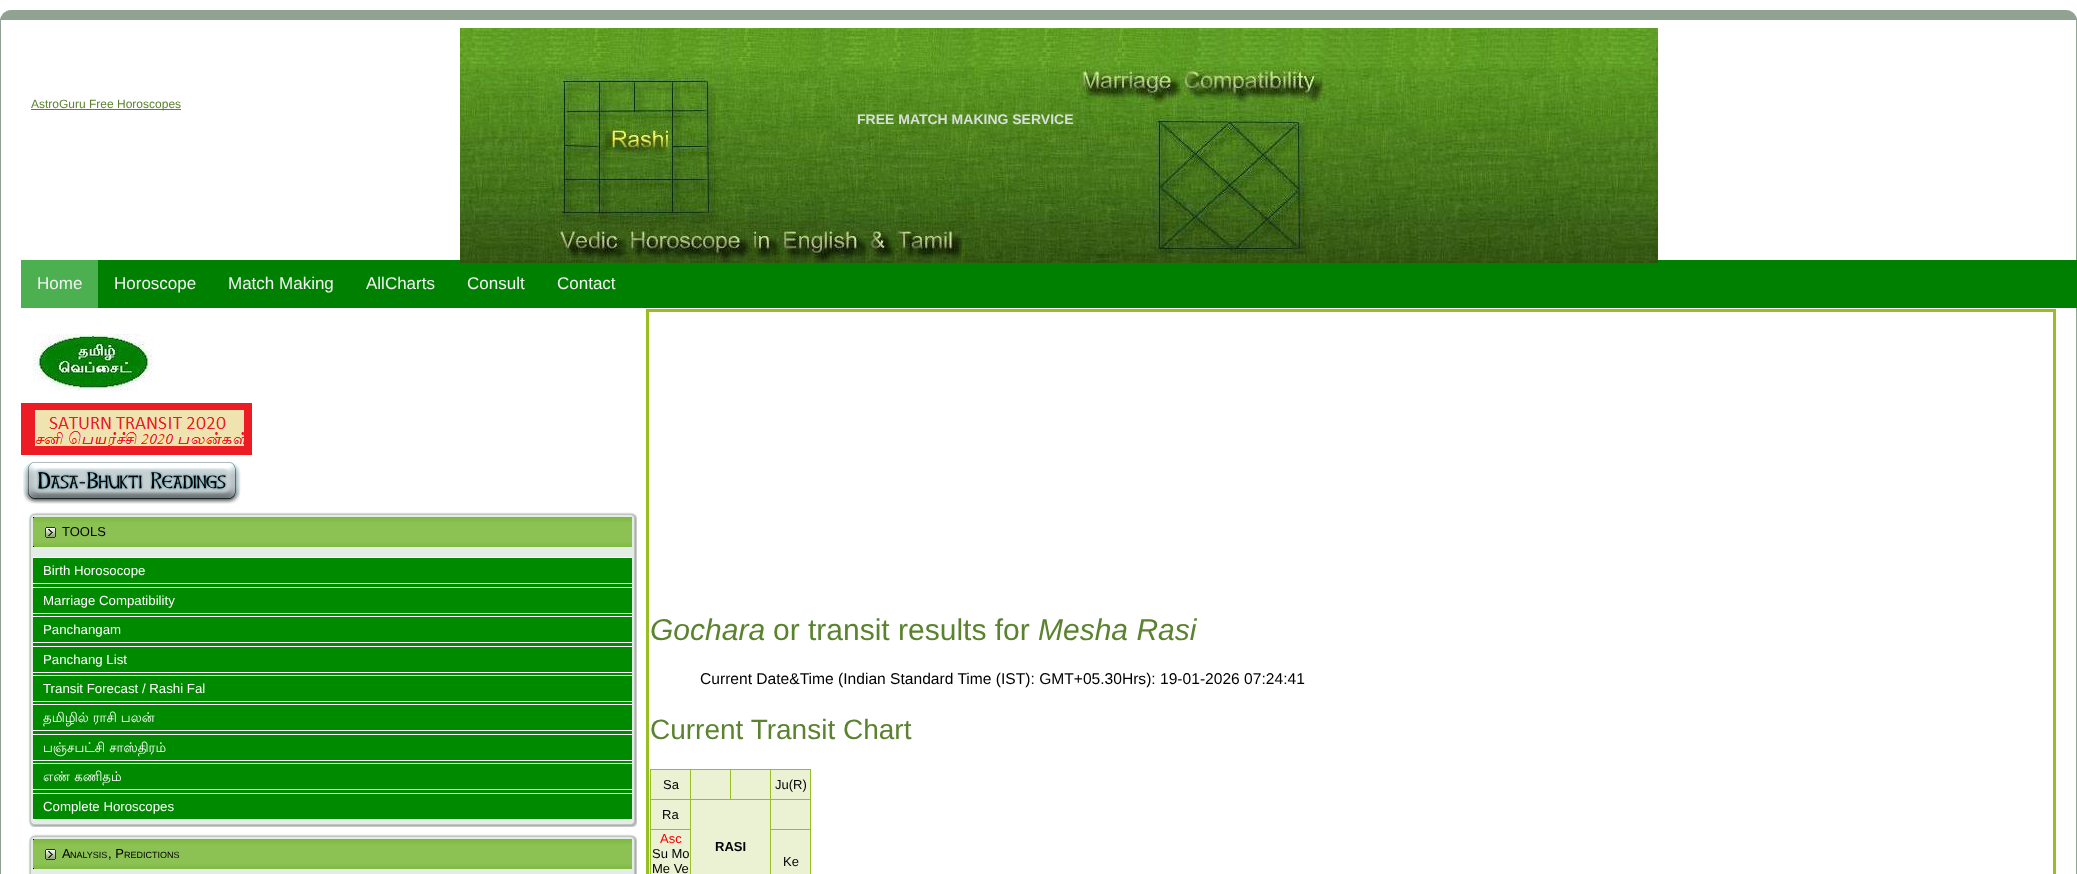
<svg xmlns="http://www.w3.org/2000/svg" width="2077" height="874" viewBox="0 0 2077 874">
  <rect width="100%" height="100%" fill="#ffffff"/>
  <image x="0" y="10" width="11" height="11" href="img1.png"/>
  <rect x="11" y="10" width="2055" height="10" fill="#90a291"/>
  <image x="2066" y="10" width="11" height="11" href="img2.png"/>
  <rect x="0" y="21" width="1" height="853" fill="#90a291"/>
  <rect x="2076" y="21" width="1" height="853" fill="#90a291"/>
  <rect x="98" y="260" width="1979" height="48" fill="#008000"/>
  <image x="460" y="28" width="1198" height="235" href="img3.png"/>
  <rect x="31" y="109" width="150" height="1" fill="#5b832f"/>
  <text x="31" y="108" font-family="Liberation Sans" font-size="12" fill="#5b832f">AstroGuru Free Horoscopes</text>
  <text x="857" y="124" font-family="Liberation Sans" font-size="14" font-weight="bold" fill="#d8dfd9">FREE MATCH MAKING SERVICE</text>
  <rect x="21" y="260" width="77" height="48" fill="#4caf50"/>
  <text x="37" y="289" font-family="Liberation Sans" font-size="17" fill="#f2f2f2">Home</text>
  <text x="114" y="289" font-family="Liberation Sans" font-size="17" fill="#f2f2f2">Horoscope</text>
  <text x="228" y="289" font-family="Liberation Sans" font-size="17" fill="#f2f2f2">Match Making</text>
  <text x="366" y="289" font-family="Liberation Sans" font-size="17" fill="#f2f2f2">AllCharts</text>
  <text x="467" y="289" font-family="Liberation Sans" font-size="17" fill="#f2f2f2">Consult</text>
  <text x="557" y="289" font-family="Liberation Sans" font-size="17" fill="#f2f2f2">Contact</text>
  <image x="33" y="334" width="120" height="57" href="img4.png"/>
  <image x="21" y="403" width="231" height="52" href="img5.png"/>
  <image x="23" y="461" width="218" height="43" href="img6.png"/>
  <image x="28" y="512" width="13" height="13" href="img7.png"/>
  <image x="41" y="512" width="583" height="5" href="img8.png"/>
  <image x="624" y="512" width="13" height="13" href="img9.png"/>
  <image x="28" y="525" width="13" height="289" href="img10.png"/>
  <image x="624" y="525" width="13" height="289" href="img14.png"/>
  <image x="33" y="517" width="595" height="30" href="img11.png"/>
  <image x="628" y="517" width="4" height="30" href="img12.png"/>
  <image x="45" y="527" width="11" height="11" href="img13.png"/>
  <text x="62" y="536" font-family="Liberation Sans" font-size="13" fill="#000000">TOOLS</text>
  <image x="28" y="814" width="13" height="13" href="img15.png"/>
  <image x="624" y="814" width="13" height="13" href="img17.png"/>
  <rect x="33" y="558" width="599" height="261" fill="#008a00"/>
  <rect x="33" y="557" width="599" height="1" fill="#ffffff"/>
  <rect x="33" y="583" width="599" height="1" fill="#ffffff"/>
  <text x="43" y="575" font-family="Liberation Sans" font-size="13.25" fill="#ffffff">Birth Horosocope</text>
  <rect x="33" y="587" width="599" height="1" fill="#ffffff"/>
  <rect x="33" y="613" width="599" height="1" fill="#ffffff"/>
  <text x="43" y="605" font-family="Liberation Sans" font-size="13.25" fill="#ffffff">Marriage Compatibility</text>
  <rect x="33" y="616" width="599" height="1" fill="#ffffff"/>
  <rect x="33" y="642" width="599" height="1" fill="#ffffff"/>
  <text x="43" y="634" font-family="Liberation Sans" font-size="13.25" fill="#ffffff">Panchangam</text>
  <rect x="33" y="646" width="599" height="1" fill="#ffffff"/>
  <rect x="33" y="672" width="599" height="1" fill="#ffffff"/>
  <text x="43" y="664" font-family="Liberation Sans" font-size="13.25" fill="#ffffff">Panchang List</text>
  <rect x="33" y="675" width="599" height="1" fill="#ffffff"/>
  <rect x="33" y="701" width="599" height="1" fill="#ffffff"/>
  <text x="43" y="693" font-family="Liberation Sans" font-size="13.25" fill="#ffffff">Transit Forecast / Rashi Fal</text>
  <rect x="33" y="704" width="599" height="1" fill="#ffffff"/>
  <rect x="33" y="730" width="599" height="1" fill="#ffffff"/>
  <text x="43" y="722" font-family="Lohit Tamil" font-size="13.25" fill="#ffffff">தமிழில் ராசி பலன்</text>
  <rect x="33" y="734" width="599" height="1" fill="#ffffff"/>
  <rect x="33" y="760" width="599" height="1" fill="#ffffff"/>
  <text x="43" y="752" font-family="Lohit Tamil" font-size="13.25" fill="#ffffff">பஞ்சபட்சி சாஸ்திரம்</text>
  <rect x="33" y="763" width="599" height="1" fill="#ffffff"/>
  <rect x="33" y="789" width="599" height="1" fill="#ffffff"/>
  <text x="43" y="781" font-family="Lohit Tamil" font-size="13.25" fill="#ffffff">எண் கணிதம்</text>
  <rect x="33" y="793" width="599" height="1" fill="#ffffff"/>
  <rect x="33" y="819" width="599" height="1" fill="#ffffff"/>
  <text x="43" y="811" font-family="Liberation Sans" font-size="13.25" fill="#ffffff">Complete Horoscopes</text>
  <rect x="41" y="547" width="583" height="10" fill="#e5ebe6"/>
  <image x="41" y="820" width="583" height="7" href="img16.png"/>
  <image x="28" y="834" width="13" height="13" href="img7.png"/>
  <image x="41" y="834" width="583" height="5" href="img8.png"/>
  <image x="624" y="834" width="13" height="13" href="img9.png"/>
  <image x="28" y="847" width="13" height="27" href="img18.png"/>
  <image x="624" y="847" width="13" height="27" href="img19.png"/>
  <image x="33" y="839" width="595" height="30" href="img11.png"/>
  <image x="628" y="839" width="4" height="30" href="img12.png"/>
  <image x="45" y="849" width="11" height="11" href="img13.png"/>
  <text x="62" y="858" font-family="Liberation Sans" font-size="13" fill="#000000">A</text>
  <text x="70" y="858" font-family="Liberation Sans" font-size="9" fill="#000000">NALYSIS</text>
  <text x="108" y="858" font-family="Liberation Sans" font-size="13" fill="#000000">, P</text>
  <text x="124" y="858" font-family="Liberation Sans" font-size="9" fill="#000000">REDICTIONS</text>
  <rect x="41" y="869" width="583" height="5" fill="#e5ebe6"/>
  <rect x="647.5" y="310.5" width="1407" height="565" fill="none" stroke="#98bf21" stroke-width="3"/>
  <text x="650" y="640" font-family="Liberation Sans" font-size="30" font-style="italic" fill="#5b832f">Gochara</text>
  <text x="773" y="640" font-family="Liberation Sans" font-size="30" fill="#5b832f">or transit results for</text>
  <text x="1038" y="640" font-family="Liberation Sans" font-size="30" font-style="italic" fill="#5b832f">Mesha Rasi</text>
  <text x="700" y="684" font-family="Liberation Sans" font-size="15.6" fill="#000000">Current Date&amp;Time (Indian Standard Time (IST): GMT+05.30Hrs): 19-01-2026 07:24:41</text>
  <text x="650" y="739" font-family="Liberation Sans" font-size="28" fill="#5b832f">Current Transit Chart</text>
  <rect x="651" y="770" width="159" height="29" fill="#eaf2d3"/>
  <rect x="770" y="769" width="41" height="1" fill="#98bf21"/>
  <rect x="770" y="799" width="41" height="1" fill="#98bf21"/>
  <rect x="651" y="800" width="159" height="29" fill="#eaf2d3"/>
  <rect x="770" y="829" width="41" height="1" fill="#98bf21"/>
  <rect x="651" y="830" width="159" height="44" fill="#eaf2d3"/>
  <rect x="770" y="829" width="1" height="45" fill="#98bf21"/>
  <rect x="770" y="799" width="1" height="31" fill="#98bf21"/>
  <rect x="690" y="799" width="81" height="1" fill="#98bf21"/>
  <rect x="770" y="769" width="1" height="31" fill="#98bf21"/>
  <rect x="730" y="769" width="41" height="1" fill="#98bf21"/>
  <rect x="730" y="769" width="1" height="31" fill="#98bf21"/>
  <rect x="690" y="769" width="41" height="1" fill="#98bf21"/>
  <rect x="650" y="829" width="41" height="1" fill="#98bf21"/>
  <rect x="690" y="799" width="1" height="75" fill="#98bf21"/>
  <rect x="650" y="799" width="41" height="1" fill="#98bf21"/>
  <rect x="690" y="769" width="1" height="31" fill="#98bf21"/>
  <rect x="650" y="769" width="41" height="1" fill="#98bf21"/>
  <rect x="650" y="829" width="1" height="45" fill="#98bf21"/>
  <rect x="650" y="799" width="1" height="31" fill="#98bf21"/>
  <rect x="650" y="769" width="1" height="31" fill="#98bf21"/>
  <text x="663" y="789" font-family="Liberation Sans" font-size="13" fill="#000000">Sa</text>
  <rect x="810" y="829" width="1" height="45" fill="#98bf21"/>
  <rect x="810" y="799" width="1" height="31" fill="#98bf21"/>
  <rect x="810" y="769" width="1" height="31" fill="#98bf21"/>
  <text x="775" y="789" font-family="Liberation Sans" font-size="13" fill="#000000">Ju(R)</text>
  <text x="662" y="819" font-family="Liberation Sans" font-size="13" fill="#000000">Ra</text>
  <rect x="691" y="829" width="79" height="1" fill="#eaf2d3"/>
  <text x="715" y="851" font-family="Liberation Sans" font-size="13" font-weight="bold" fill="#000000">RASI</text>
  <text x="660" y="843" font-family="Liberation Sans" font-size="13" fill="#ff0000">Asc</text>
  <text x="652" y="858" font-family="Liberation Sans" font-size="13" fill="#000000">Su Mo</text>
  <text x="652" y="873" font-family="Liberation Sans" font-size="13" fill="#000000">Me Ve</text>
  <text x="783" y="866" font-family="Liberation Sans" font-size="13" fill="#000000">Ke</text>
</svg>
